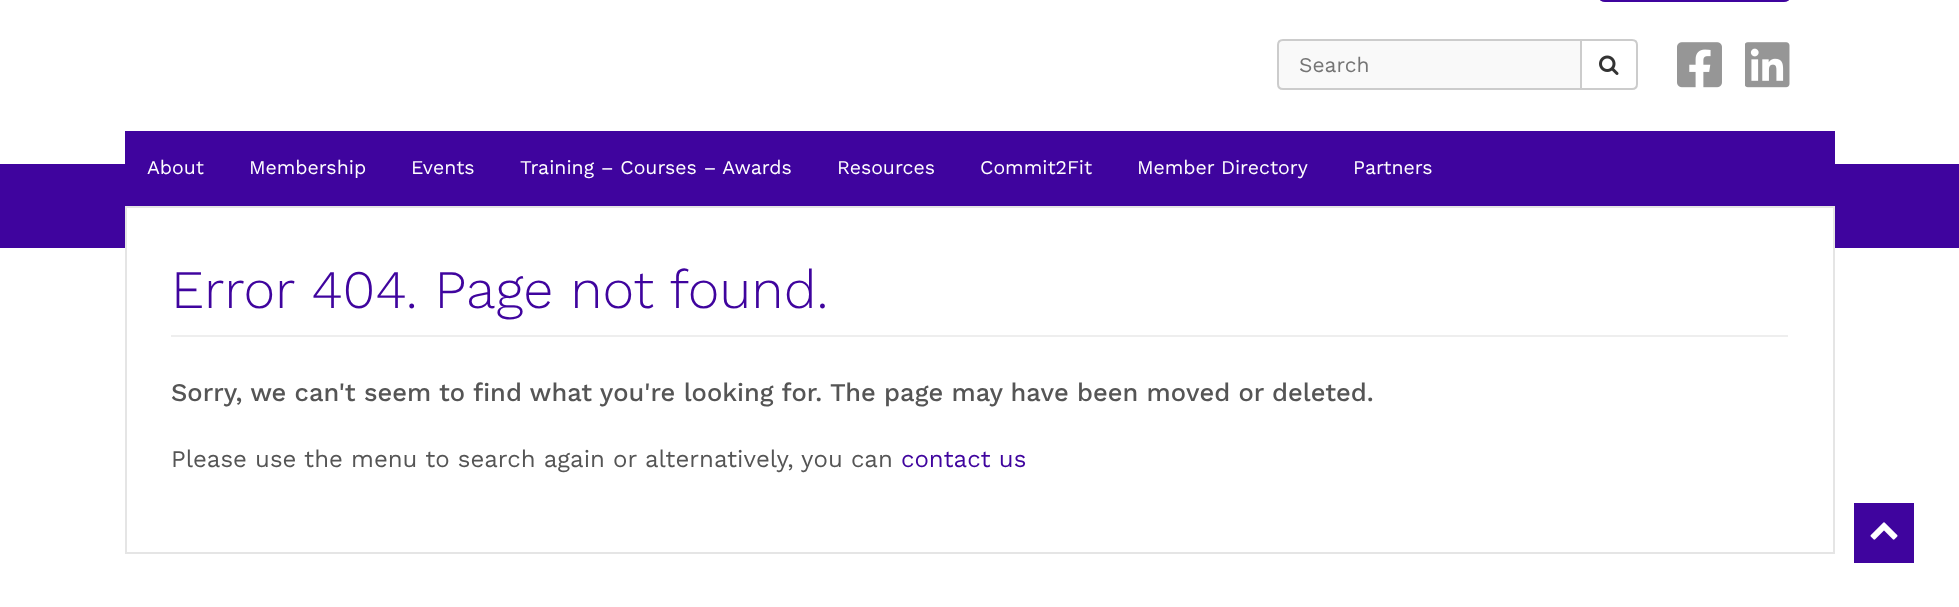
<svg xmlns="http://www.w3.org/2000/svg" width="1959" height="607" viewBox="0 0 1959 607">
  <rect width="100%" height="100%" fill="#ffffff"/>
  <rect x="1599" y="-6" width="191" height="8" rx="6" fill="#3f049e"/>
  <path d="M1283 40H1591V89H1283C1280 89 1278 87 1278 84V45C1278 42 1280 40 1283 40Z" fill="#f9f9f9" stroke="#cccccc" stroke-width="2"/>
  <text x="1299" y="72" font-family="Work Sans" font-size="21" fill="#757575">Search</text>
  <path d="M1581 40H1632C1635 40 1637 42 1637 45V84C1637 87 1635 89 1632 89H1581Z" fill="#ffffff" stroke="#cccccc" stroke-width="2"/>
  <image x="1599" y="55" width="20" height="20" href="img1.png"/>
  <image x="1677" y="42" width="45" height="46" href="img2.png"/>
  <image x="1745" y="42" width="45" height="46" href="img3.png"/>
  <rect x="0" y="164" width="1959" height="84" fill="#3f049e"/>
  <rect x="127" y="208" width="1706" height="40" fill="#ffffff"/>
  <rect x="125" y="131" width="1710" height="33" fill="#3f049e"/>
  <text x="147" y="174" font-family="Work Sans" font-size="19.5" fill="#ffffff">About</text>
  <text x="249" y="174" font-family="Work Sans" font-size="19.5" fill="#ffffff">Membership</text>
  <text x="411" y="174" font-family="Work Sans" font-size="19.5" fill="#ffffff">Events</text>
  <text x="520" y="174" font-family="Work Sans" font-size="19.5" fill="#ffffff">Training – Courses – Awards</text>
  <text x="837" y="174" font-family="Work Sans" font-size="19.5" fill="#ffffff">Resources</text>
  <text x="980" y="174" font-family="Work Sans" font-size="19.5" fill="#ffffff">Commit2Fit</text>
  <text x="1137" y="174" font-family="Work Sans" font-size="19.5" fill="#ffffff">Member Directory</text>
  <text x="1353" y="174" font-family="Work Sans" font-size="19.5" fill="#ffffff">Partners</text>
  <rect x="126" y="207" width="1708" height="346" fill="none" stroke="#e5e5e5" stroke-width="2"/>
  <rect x="171" y="335" width="1617" height="2" fill="#eeeeee"/>
  <text x="171" y="308" font-family="Work Sans" font-size="54" font-weight="300" fill="#3f049e">Error 404. Page not found.</text>
  <text x="171" y="401" font-family="Work Sans" font-size="25.5" font-weight="500" fill="#555555">Sorry, we can't seem to find what you're looking for. The page may have been moved or deleted.</text>
  <text x="171" y="467" font-family="Work Sans" font-size="24" fill="#555555">Please use the menu to search again or alternatively, you can</text>
  <text x="901" y="467" font-family="Work Sans" font-size="24" fill="#3f049e">contact us</text>
  <rect x="1854" y="503" width="60" height="60" fill="#3f049e"/>
  <image x="1870" y="522" width="28" height="18" href="img4.png"/>
</svg>
